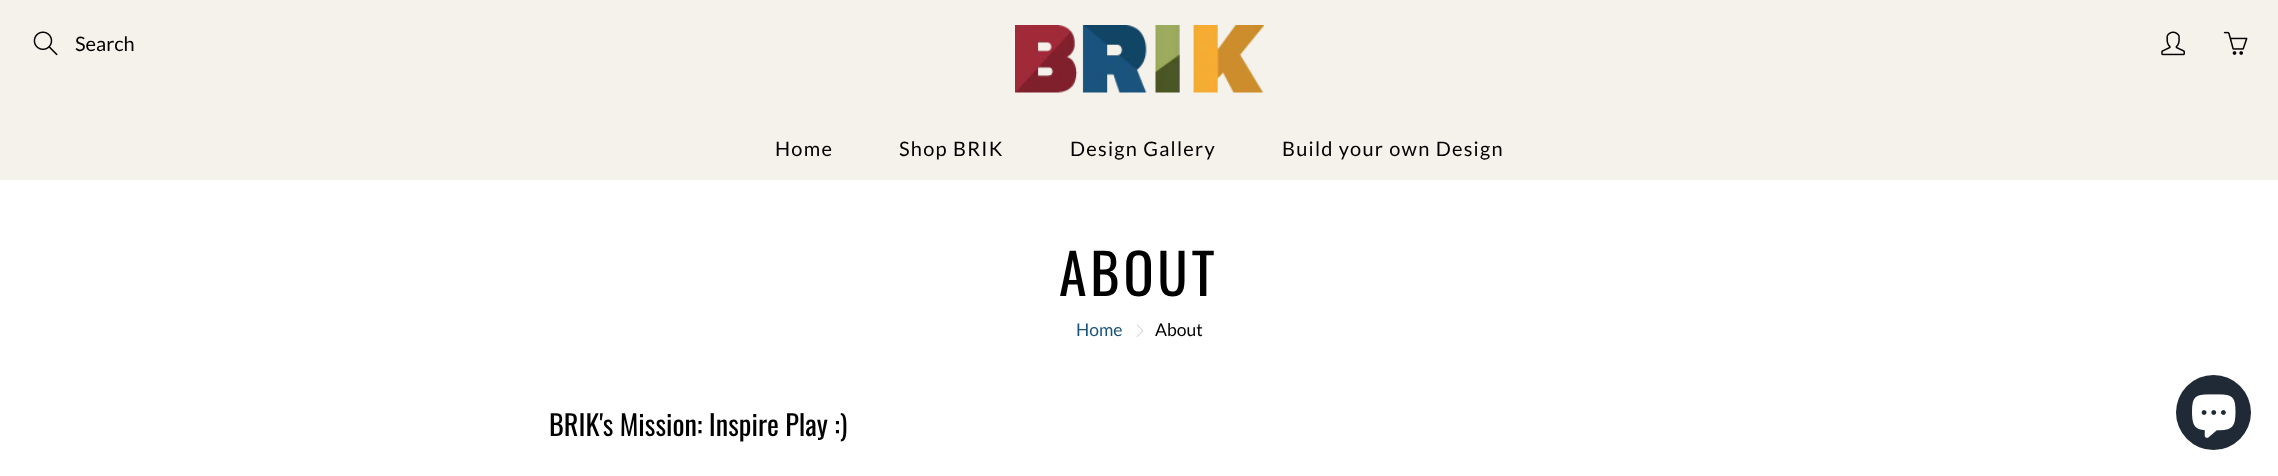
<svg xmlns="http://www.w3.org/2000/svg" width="2278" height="476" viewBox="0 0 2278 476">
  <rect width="100%" height="100%" fill="#ffffff"/>
  <rect x="0" y="0" width="2278" height="180" fill="#f5f2eb"/>
  <image x="33" y="31" width="25" height="25" href="img1.png"/>
  <text x="75" y="51" font-family="Lato" font-size="20" fill="#000000">Search</text>
  <image x="1015" y="25" width="249" height="68" href="img2.png"/>
  <image x="2161" y="31" width="24" height="25" href="img3.png"/>
  <image x="2223" y="31" width="25" height="24" href="img4.png"/>
  <text x="775" y="156" font-family="Lato" font-size="20" letter-spacing="1.25" fill="#000000">Home</text>
  <text x="899" y="156" font-family="Lato" font-size="20" letter-spacing="1.25" fill="#000000">Shop BRIK</text>
  <text x="1070" y="156" font-family="Lato" font-size="20" letter-spacing="1.25" fill="#000000">Design Gallery</text>
  <text x="1282" y="156" font-family="Lato" font-size="20" letter-spacing="1.25" fill="#000000">Build your own Design</text>
  <text x="1059" y="296" font-family="Oswald" font-size="56" letter-spacing="3.75" fill="#000000">ABOUT</text>
  <text x="1076" y="336" font-family="Lato" font-size="17.5" fill="#1a547e">Home</text>
  <image x="1136" y="324" width="8" height="13" href="img5.png"/>
  <text x="1155" y="336" font-family="Lato" font-size="17.5" fill="#000000">About</text>
  <text x="549" y="436" font-family="Oswald" font-size="28.25" fill="#000000">BRIK's Mission: Inspire Play :)</text>
  <circle cx="2213.5" cy="412.5" r="37.5" fill="#202a36"/>
  <image x="2192" y="394" width="44" height="44" href="img6.png"/>
</svg>
